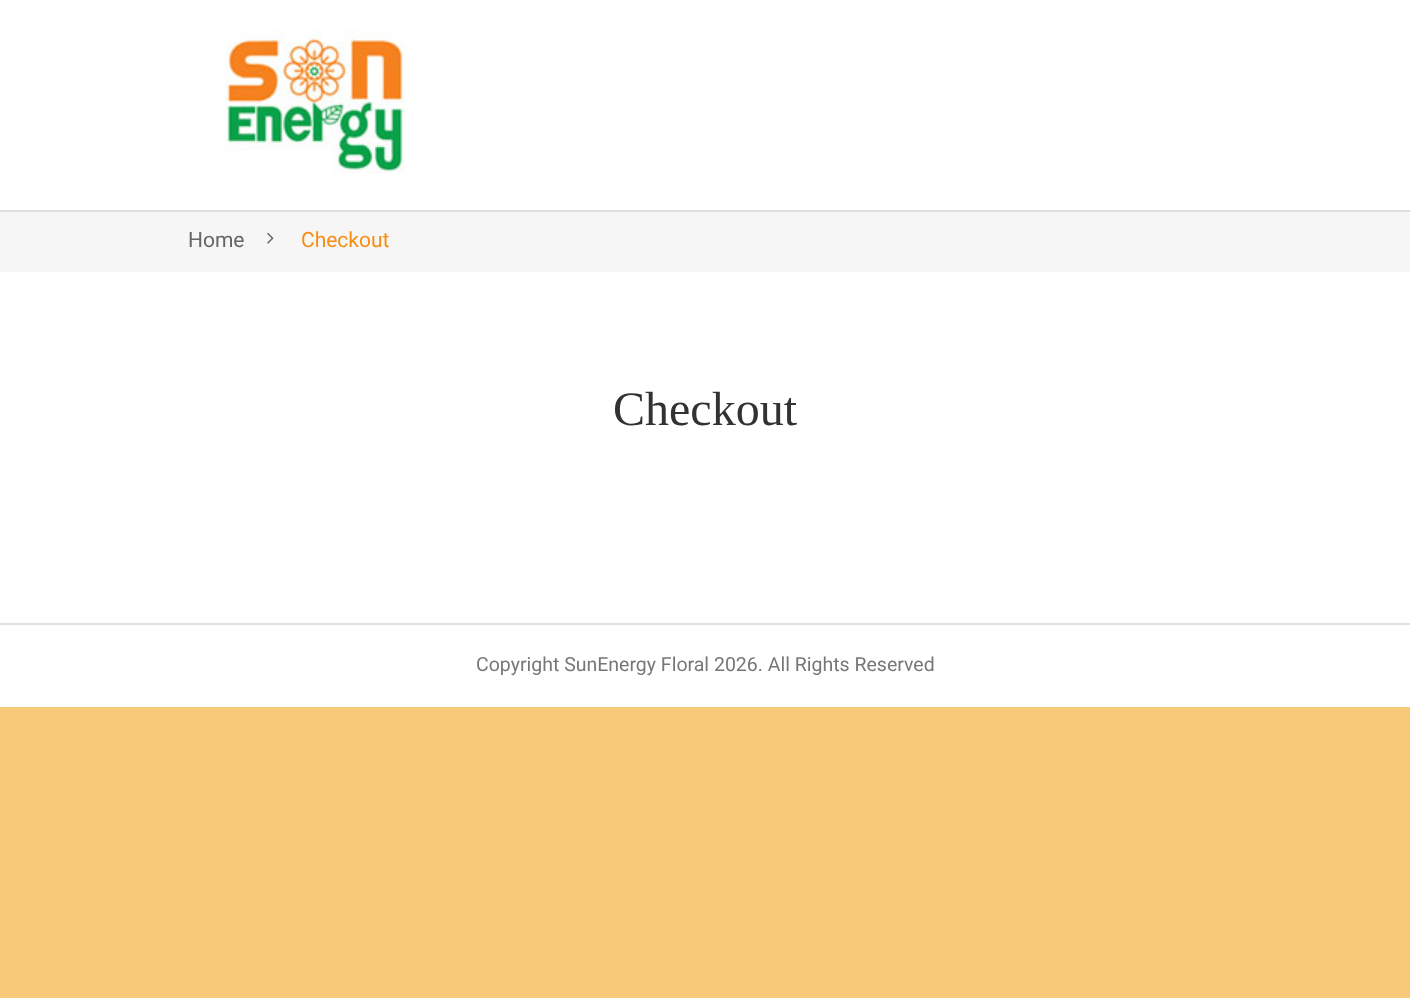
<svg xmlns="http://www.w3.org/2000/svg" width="1410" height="998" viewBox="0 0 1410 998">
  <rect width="100%" height="100%" fill="#f7c979"/>
  <rect x="0" y="0" width="1410" height="707" fill="#ffffff"/>
  <image x="225" y="30" width="180" height="144" href="img1.png"/>
  <rect x="0" y="212" width="1410" height="60" fill="#f6f6f6"/>
  <rect x="0" y="210" width="1410" height="2" fill="#dddddd"/>
  <text x="188" y="247" font-family="Roboto" font-size="21" fill="#666666">Home</text>
  <image x="267" y="232" width="7" height="12" href="img2.png"/>
  <text x="301" y="247" font-family="Roboto" font-size="21" fill="#f78d13">Checkout</text>
  <text x="613" y="425" font-family="Liberation Serif" font-size="48" fill="#323232">Checkout</text>
  <rect x="0" y="623" width="1410" height="2" fill="#e0e0e0"/>
  <text x="476" y="671" font-family="Roboto" font-size="19.5" fill="#777777">Copyright SunEnergy Floral 2026. All Rights Reserved</text>
</svg>
